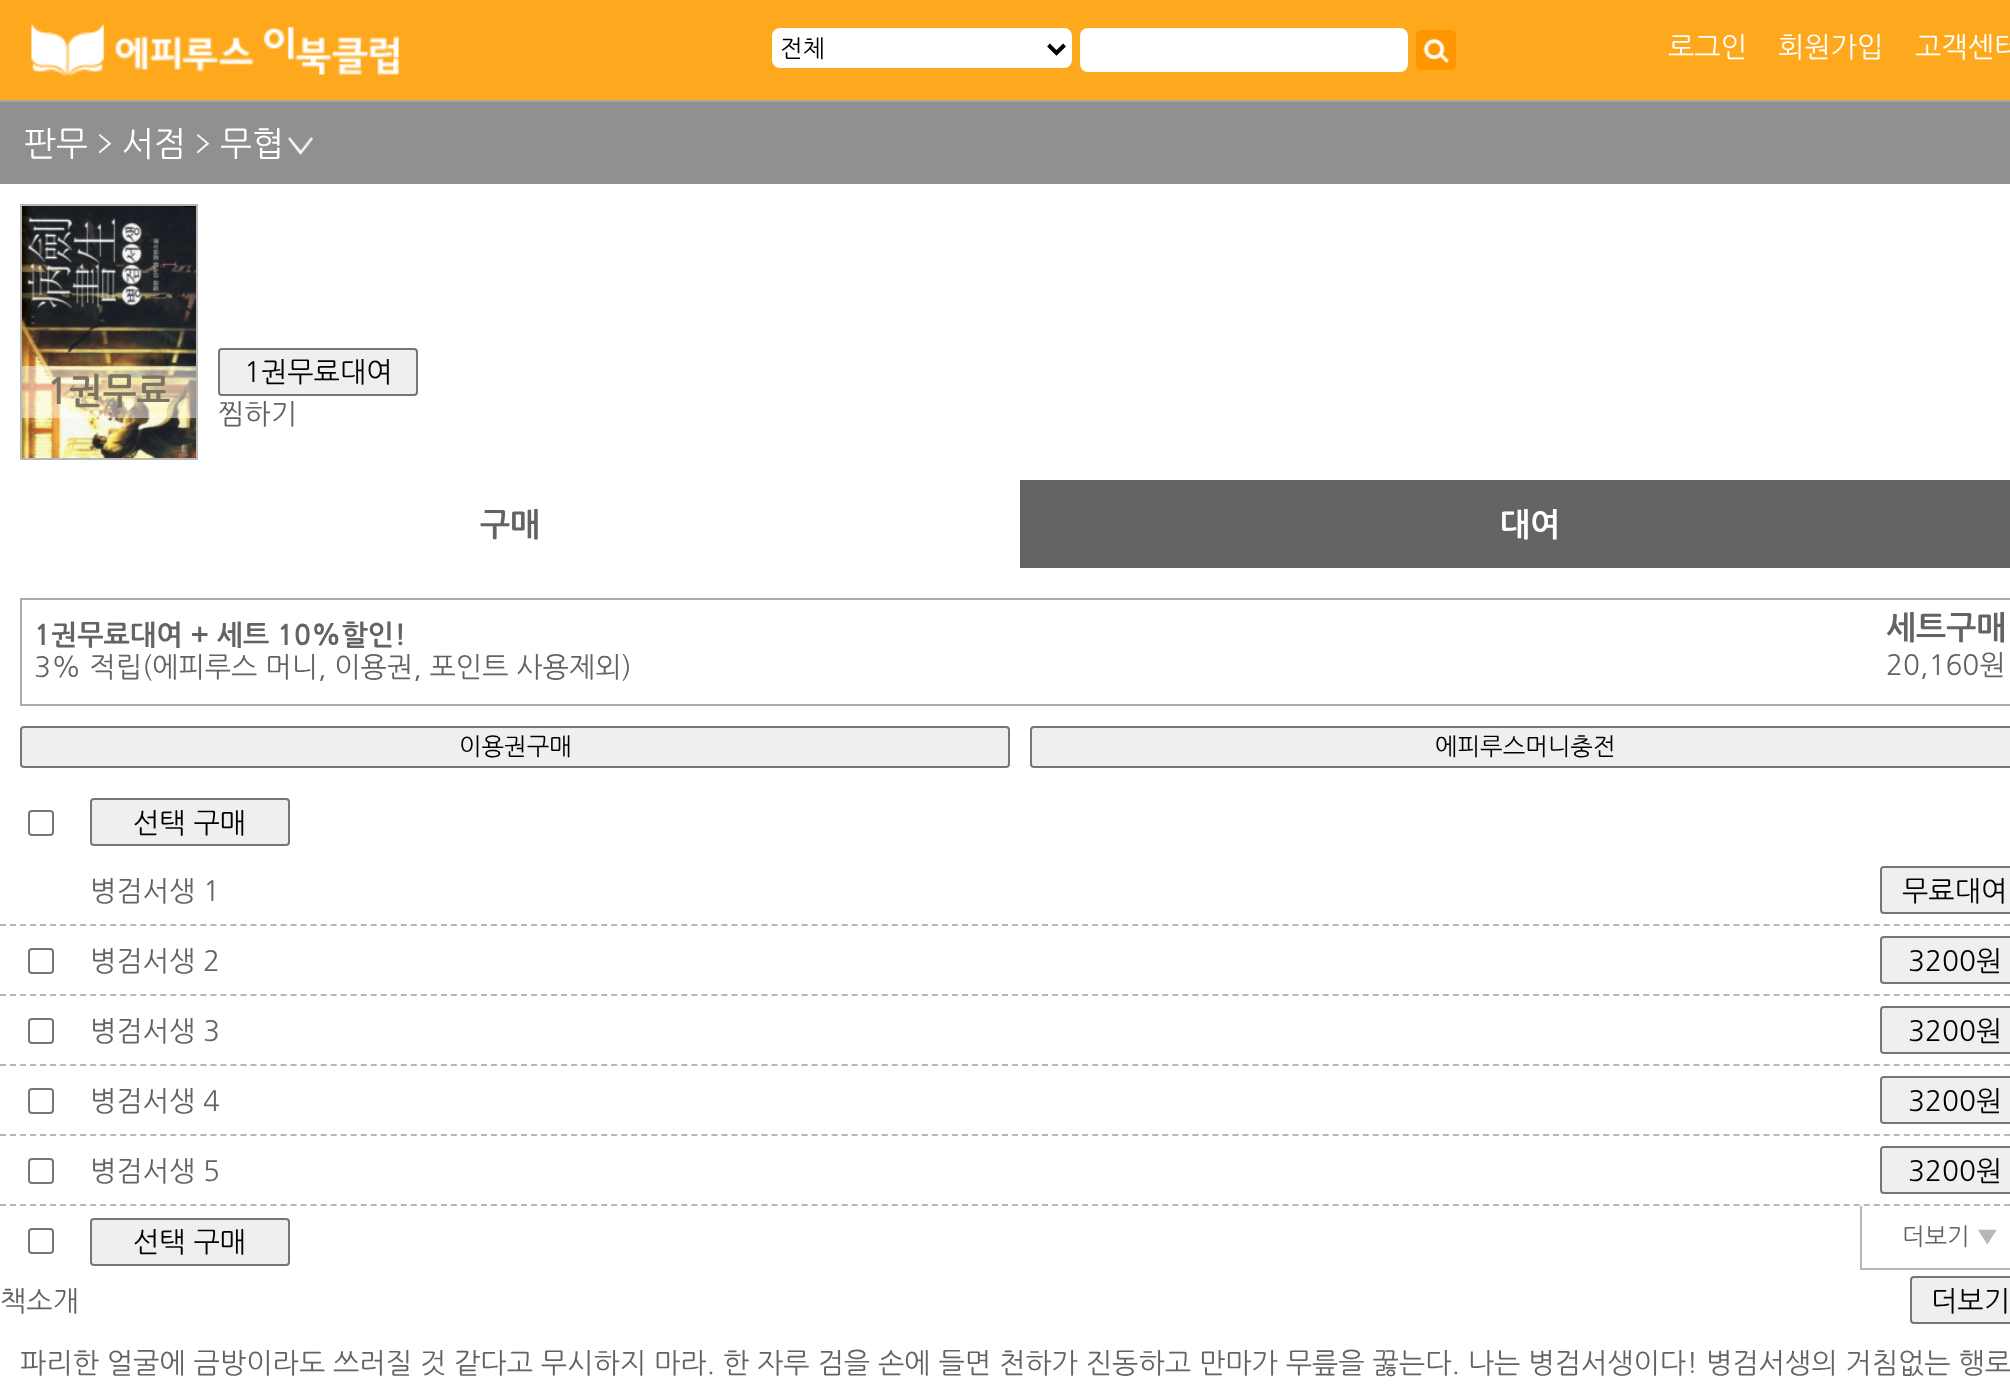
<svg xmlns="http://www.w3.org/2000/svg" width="2010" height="1388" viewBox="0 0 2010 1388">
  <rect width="100%" height="100%" fill="#ffffff"/>
  <rect x="0" y="0" width="2010" height="100" fill="#fea91d"/>
  <image x="31" y="23" width="368" height="54" href="img1.png"/>
  <rect x="772" y="28" width="300" height="40" rx="8" fill="#ffffff"/>
  <path d="M1048.5 45L1056.5 53L1064.5 45" fill="none" stroke="#000000" stroke-width="4"/>
  <text x="780" y="57" font-family="NanumGothic" font-size="24" fill="#000000">전체</text>
  <rect x="1080" y="28" width="328" height="44" rx="8" fill="#ffffff"/>
  <image x="1416" y="30" width="40" height="40" href="img2.png"/>
  <text x="1668" y="57" font-family="NanumGothic" font-size="28" fill="#ffffff">로그인</text>
  <text x="1778" y="57" font-family="NanumGothic" font-size="28" fill="#ffffff">회원가입</text>
  <text x="1915" y="57" font-family="NanumGothic" font-size="28" fill="#ffffff">고객센터</text>
  <rect x="0" y="102" width="2010" height="82" fill="#909090"/>
  <rect x="0" y="100" width="2010" height="2" fill="#a6a6a6"/>
  <text x="24" y="156" font-family="NanumGothic" font-size="34" fill="#ffffff">판무</text>
  <image x="98" y="134" width="14" height="20" href="img3.png"/>
  <text x="122" y="156" font-family="NanumGothic" font-size="34" fill="#ffffff">서점</text>
  <image x="196" y="134" width="14" height="20" href="img3.png"/>
  <text x="220" y="156" font-family="NanumGothic" font-size="34" fill="#ffffff">무협</text>
  <image x="288" y="137" width="25" height="18" href="img4.png"/>
  <rect x="21" y="205" width="176" height="254" fill="none" stroke="#b8b8b8" stroke-width="2"/>
  <image x="22" y="206" width="174" height="252" href="img5.png"/>
  <rect x="22" y="366" width="174" height="52" fill="#ffffff" fill-opacity="0.48"/>
  <text x="47" y="404" font-family="NanumGothic" font-size="36" font-weight="bold" fill="#7a7462">1권무료</text>
  <rect x="219" y="349" width="198" height="46" rx="3" fill="#efefef" stroke="#767676" stroke-width="2"/>
  <text x="244" y="382" font-family="NanumGothic" font-size="28" fill="#000000">1권무료대여</text>
  <text x="218" y="424" font-family="NanumGothic" font-size="28" fill="#636363">찜하기</text>
  <text x="480" y="536" font-family="NanumGothic" font-size="32" font-weight="bold" fill="#636363">구매</text>
  <rect x="1020" y="480" width="990" height="88" fill="#646464"/>
  <text x="1500" y="536" font-family="NanumGothic" font-size="32" font-weight="bold" fill="#ffffff">대여</text>
  <rect x="21" y="599" width="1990" height="106" fill="none" stroke="#ababab" stroke-width="2"/>
  <text x="34" y="645" font-family="NanumGothic" font-size="28" font-weight="bold" fill="#636363">1권무료대여 + 세트 10%할인!</text>
  <text x="34" y="677" font-family="NanumGothic" font-size="28" fill="#636363">3% 적립(에피루스 머니, 이용권, 포인트 사용제외)</text>
  <text x="1886" y="639" font-family="NanumGothic" font-size="32" font-weight="bold" fill="#636363">세트구매</text>
  <text x="1886" y="675" font-family="NanumGothic" font-size="28" fill="#636363">20,160원</text>
  <rect x="21" y="727" width="988" height="40" rx="3" fill="#efefef" stroke="#767676" stroke-width="2"/>
  <text x="459" y="755" font-family="NanumGothic" font-size="24" fill="#000000">이용권구매</text>
  <rect x="1031" y="727" width="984" height="40" rx="3" fill="#efefef" stroke="#767676" stroke-width="2"/>
  <text x="1435" y="755" font-family="NanumGothic" font-size="24" fill="#000000">에피루스머니충전</text>
  <rect x="29" y="811" width="24" height="24" rx="3" fill="none" stroke="#767676" stroke-width="2"/>
  <rect x="91" y="799" width="198" height="46" rx="3" fill="#efefef" stroke="#767676" stroke-width="2"/>
  <text x="133" y="833" font-family="NanumGothic" font-size="28" fill="#000000">선택 구매</text>
  <path d="M0 925H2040" fill="none" stroke="#b7b7b7" stroke-width="2" stroke-dasharray="6 4.02"/>
  <text x="90" y="901" font-family="NanumGothic" font-size="28" fill="#636363">병검서생 1</text>
  <rect x="1881" y="867" width="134" height="46" rx="3" fill="#efefef" stroke="#767676" stroke-width="2"/>
  <text x="1902" y="901" font-family="NanumGothic" font-size="28" fill="#000000">무료대여</text>
  <path d="M0 995H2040" fill="none" stroke="#b7b7b7" stroke-width="2" stroke-dasharray="6 4.02"/>
  <rect x="29" y="949" width="24" height="24" rx="3" fill="none" stroke="#767676" stroke-width="2"/>
  <text x="90" y="971" font-family="NanumGothic" font-size="28" fill="#636363">병검서생 2</text>
  <rect x="1881" y="937" width="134" height="46" rx="3" fill="#efefef" stroke="#767676" stroke-width="2"/>
  <text x="1908" y="971" font-family="NanumGothic" font-size="28" fill="#000000">3200원</text>
  <path d="M0 1065H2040" fill="none" stroke="#b7b7b7" stroke-width="2" stroke-dasharray="6 4.02"/>
  <rect x="29" y="1019" width="24" height="24" rx="3" fill="none" stroke="#767676" stroke-width="2"/>
  <text x="90" y="1041" font-family="NanumGothic" font-size="28" fill="#636363">병검서생 3</text>
  <rect x="1881" y="1007" width="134" height="46" rx="3" fill="#efefef" stroke="#767676" stroke-width="2"/>
  <text x="1908" y="1041" font-family="NanumGothic" font-size="28" fill="#000000">3200원</text>
  <path d="M0 1135H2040" fill="none" stroke="#b7b7b7" stroke-width="2" stroke-dasharray="6 4.02"/>
  <rect x="29" y="1089" width="24" height="24" rx="3" fill="none" stroke="#767676" stroke-width="2"/>
  <text x="90" y="1111" font-family="NanumGothic" font-size="28" fill="#636363">병검서생 4</text>
  <rect x="1881" y="1077" width="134" height="46" rx="3" fill="#efefef" stroke="#767676" stroke-width="2"/>
  <text x="1908" y="1111" font-family="NanumGothic" font-size="28" fill="#000000">3200원</text>
  <path d="M0 1205H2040" fill="none" stroke="#b7b7b7" stroke-width="2" stroke-dasharray="6 4.02"/>
  <rect x="29" y="1159" width="24" height="24" rx="3" fill="none" stroke="#767676" stroke-width="2"/>
  <text x="90" y="1181" font-family="NanumGothic" font-size="28" fill="#636363">병검서생 5</text>
  <rect x="1881" y="1147" width="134" height="46" rx="3" fill="#efefef" stroke="#767676" stroke-width="2"/>
  <text x="1908" y="1181" font-family="NanumGothic" font-size="28" fill="#000000">3200원</text>
  <rect x="29" y="1229" width="24" height="24" rx="3" fill="none" stroke="#767676" stroke-width="2"/>
  <rect x="91" y="1219" width="198" height="46" rx="3" fill="#efefef" stroke="#767676" stroke-width="2"/>
  <text x="133" y="1252" font-family="NanumGothic" font-size="28" fill="#000000">선택 구매</text>
  <rect x="1860" y="1268" width="150" height="2" fill="#b7b7b7"/>
  <rect x="1860" y="1206" width="2" height="64" fill="#b7b7b7"/>
  <text x="1902" y="1245" font-family="NanumGothic" font-size="24" fill="#636363">더보기</text>
  <text x="1976" y="1245" font-family="NanumGothic" font-size="24" fill="#b7b7b7">▼</text>
  <text x="0" y="1311" font-family="NanumGothic" font-size="28" fill="#636363">책소개</text>
  <rect x="1911" y="1277" width="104" height="46" rx="3" fill="#efefef" stroke="#767676" stroke-width="2"/>
  <text x="1931" y="1311" font-family="NanumGothic" font-size="28" fill="#000000">더보기</text>
  <text x="20" y="1373" font-family="NanumGothic" font-size="28" fill="#636363">파리한 얼굴에 금방이라도 쓰러질 것 같다고 무시하지 마라. 한 자루 검을 손에 들면 천하가 진동하고 만마가 무릎을 꿇는다. 나는 병검서생이다! 병검서생의 거침없는 행로</text>
</svg>
